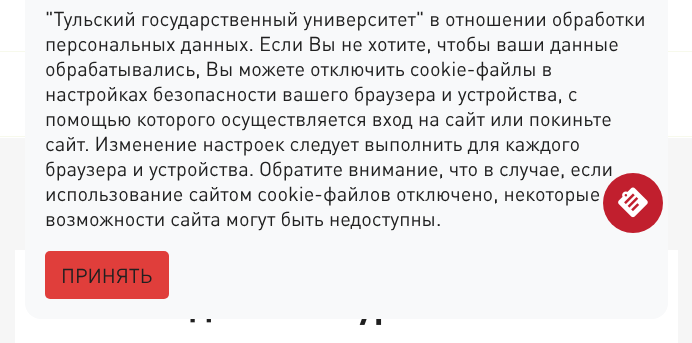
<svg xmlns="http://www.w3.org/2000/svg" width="692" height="343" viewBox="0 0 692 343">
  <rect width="100%" height="100%" fill="#ffffff"/>
  <rect x="0" y="51" width="692" height="1" fill="#f7f9ec"/>
  <rect x="0" y="136" width="692" height="1" fill="#f7f9ec"/>
  <rect x="0" y="138" width="692" height="205" fill="#f6f6f6"/>
  <rect x="15" y="250" width="663" height="93" fill="#ffffff"/>
  <rect x="25" y="-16" width="643" height="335" rx="16" fill="#f8f9fa"/>
  <text x="45" y="26" font-family="DIN" font-size="20" fill="#202020">"Тульский государственный университет" в отношении обработки</text>
  <text x="45" y="51" font-family="DIN" font-size="20" fill="#202020">персональных данных. Если Вы не хотите, чтобы ваши данные</text>
  <text x="45" y="76" font-family="DIN" font-size="20" fill="#202020">обрабатывались, Вы можете отключить cookie-файлы в</text>
  <text x="45" y="101" font-family="DIN" font-size="20" fill="#202020">настройках безопасности вашего браузера и устройства, с</text>
  <text x="45" y="126" font-family="DIN" font-size="20" fill="#202020">помощью которого осуществляется вход на сайт или покиньте</text>
  <text x="45" y="151" font-family="DIN" font-size="20" fill="#202020">сайт. Изменение настроек следует выполнить для каждого</text>
  <text x="45" y="176" font-family="DIN" font-size="20" fill="#202020">браузера и устройства. Обратите внимание, что в случае, если</text>
  <text x="45" y="201" font-family="DIN" font-size="20" fill="#202020">использование сайтом cookie-файлов отключено, некоторые</text>
  <text x="45" y="226" font-family="DIN" font-size="20" fill="#202020">возможности сайта могут быть недоступны.</text>
  <rect x="45" y="251" width="124" height="48" rx="5" fill="#e03e3b"/>
  <text x="61" y="283" font-family="DIN" font-size="20" fill="#202020">ПРИНЯТЬ</text>
  <image x="190" y="319" width="192" height="6" href="img1.png"/>
  <circle cx="633" cy="203" r="30" fill="#c11f2e"/>
  <image x="618" y="187" width="30" height="31" href="img2.png"/>
</svg>
